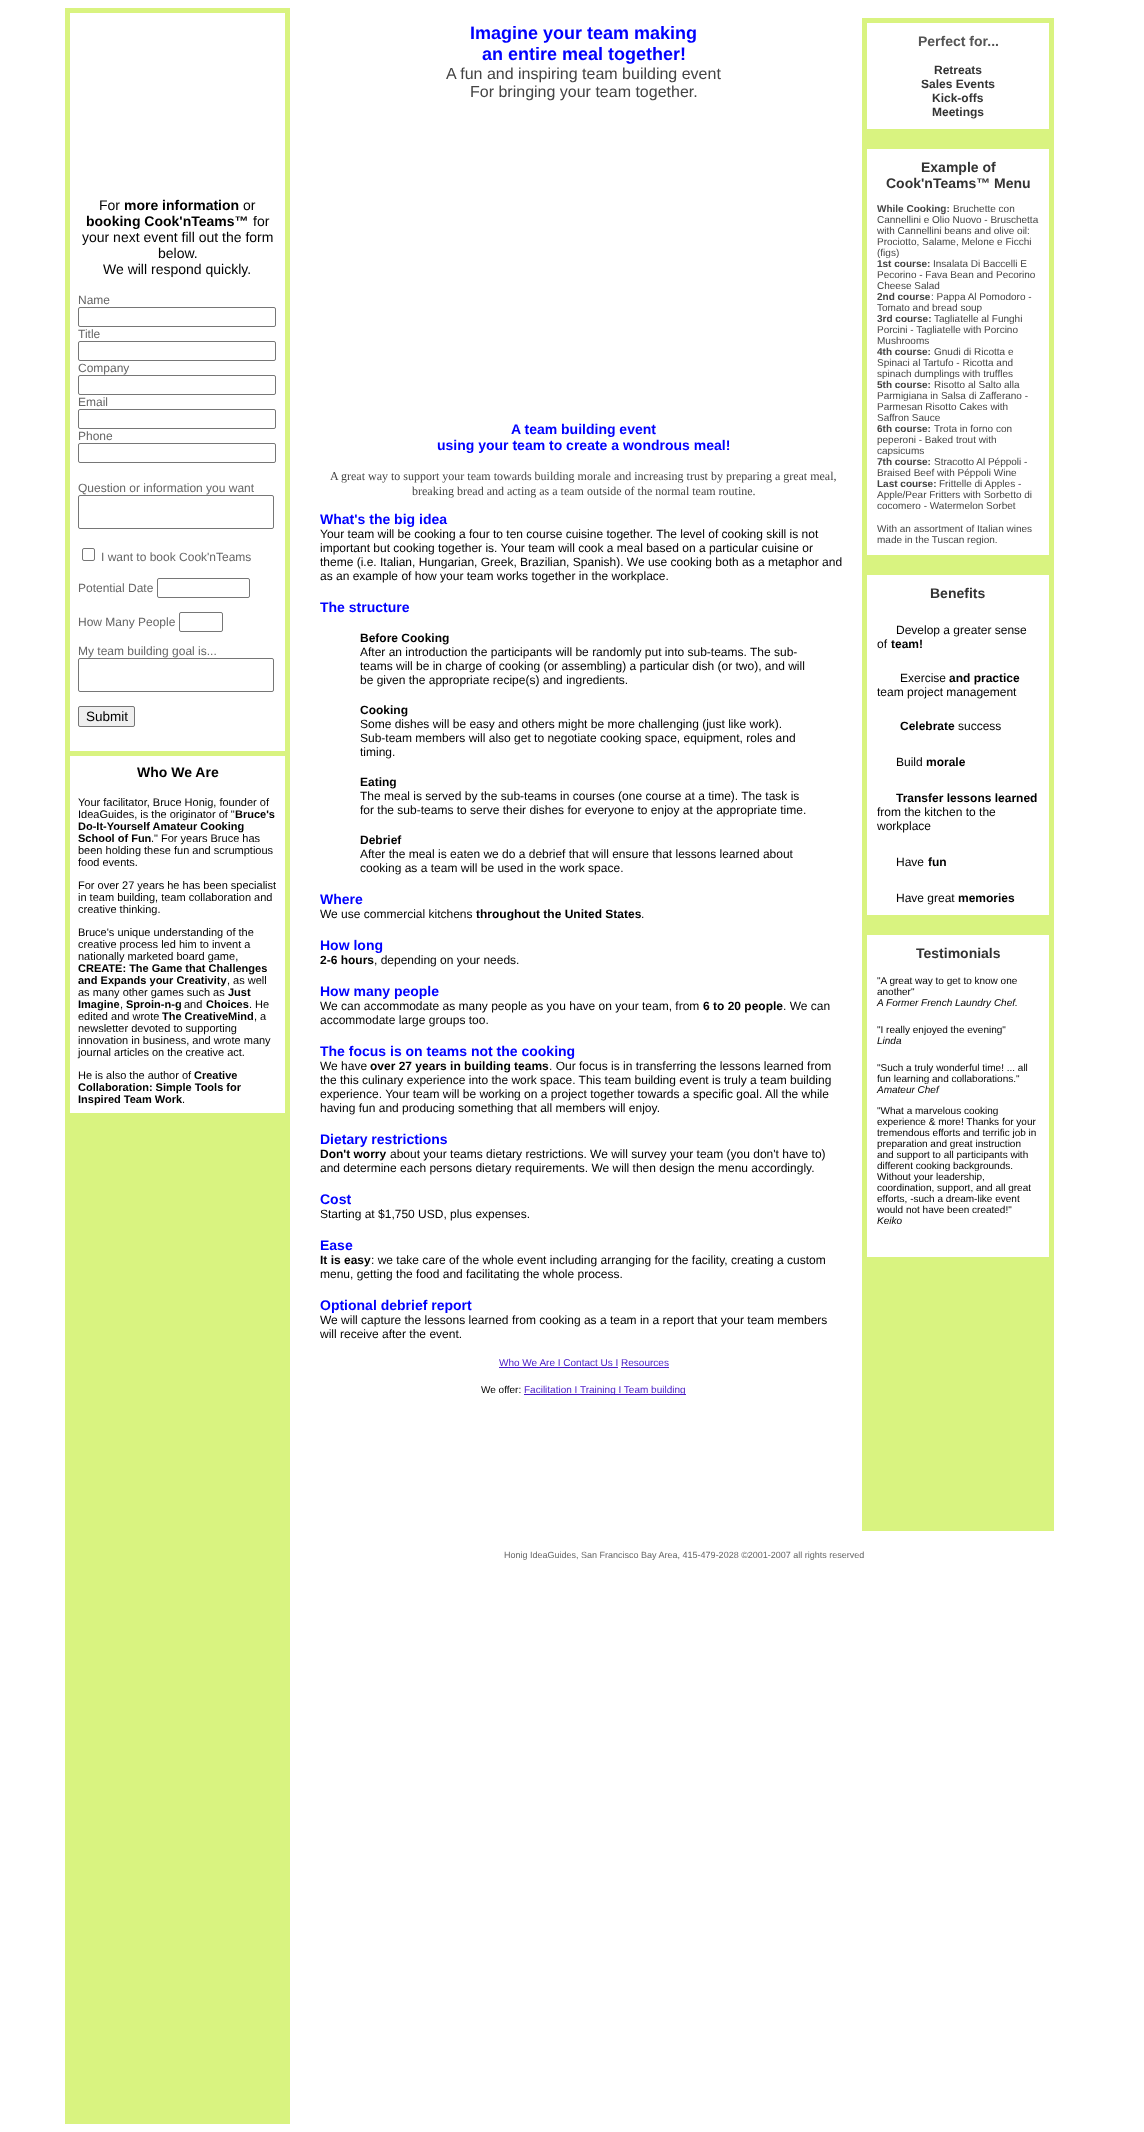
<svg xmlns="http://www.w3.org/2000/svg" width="1144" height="2132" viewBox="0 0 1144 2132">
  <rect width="100%" height="100%" fill="#ffffff"/>
  <rect x="65" y="8" width="225" height="2116" fill="#d9f380"/>
  <rect x="70" y="13" width="215" height="738" fill="#ffffff"/>
  <text x="99" y="210" font-family="Liberation Sans" font-size="14" fill="#000000">For</text>
  <text x="124" y="210" font-family="Liberation Sans" font-size="14" font-weight="bold" fill="#000000">more information</text>
  <text x="243" y="210" font-family="Liberation Sans" font-size="14" fill="#000000">or</text>
  <text x="86" y="226" font-family="Liberation Sans" font-size="14" font-weight="bold" fill="#000000">booking Cook'nTeams™</text>
  <text x="253" y="226" font-family="Liberation Sans" font-size="14" fill="#000000">for</text>
  <text x="82" y="242" font-family="Liberation Sans" font-size="14" fill="#000000">your next event fill out the form</text>
  <text x="158" y="258" font-family="Liberation Sans" font-size="14" fill="#000000">below.</text>
  <text x="103" y="274" font-family="Liberation Sans" font-size="14" fill="#000000">We will respond quickly.</text>
  <text x="78" y="304" font-family="Liberation Sans" font-size="12" fill="#666666">Name</text>
  <rect x="78.5" y="307.5" width="197" height="19" rx="1.5" fill="none" stroke="#767676"/>
  <text x="78" y="338" font-family="Liberation Sans" font-size="12" fill="#666666">Title</text>
  <rect x="78.5" y="341.5" width="197" height="19" rx="1.5" fill="none" stroke="#767676"/>
  <text x="78" y="372" font-family="Liberation Sans" font-size="12" fill="#666666">Company</text>
  <rect x="78.5" y="375.5" width="197" height="19" rx="1.5" fill="none" stroke="#767676"/>
  <text x="78" y="406" font-family="Liberation Sans" font-size="12" fill="#666666">Email</text>
  <rect x="78.5" y="409.5" width="197" height="19" rx="1.5" fill="none" stroke="#767676"/>
  <text x="78" y="440" font-family="Liberation Sans" font-size="12" fill="#666666">Phone</text>
  <rect x="78.5" y="443.5" width="197" height="19" rx="1.5" fill="none" stroke="#767676"/>
  <text x="78" y="492" font-family="Liberation Sans" font-size="12" fill="#666666">Question or information you want</text>
  <rect x="78.5" y="495.5" width="195" height="33" rx="1.5" fill="none" stroke="#767676"/>
  <rect x="82.5" y="548.5" width="12" height="12" rx="1.5" fill="none" stroke="#767676"/>
  <text x="101" y="561" font-family="Liberation Sans" font-size="12" fill="#666666">I want to book Cook'nTeams</text>
  <text x="78" y="592" font-family="Liberation Sans" font-size="12" fill="#666666">Potential Date</text>
  <rect x="157.5" y="578.5" width="92" height="19" rx="1.5" fill="none" stroke="#767676"/>
  <text x="78" y="626" font-family="Liberation Sans" font-size="12" fill="#666666">How Many People</text>
  <rect x="179.5" y="612.5" width="43" height="19" rx="1.5" fill="none" stroke="#767676"/>
  <text x="78" y="655" font-family="Liberation Sans" font-size="12" fill="#666666">My team building goal is...</text>
  <rect x="78.5" y="658.5" width="195" height="33" rx="1.5" fill="none" stroke="#767676"/>
  <rect x="78.5" y="706.5" width="56" height="20" rx="1.5" fill="#efefef" stroke="#767676"/>
  <text x="86" y="721" font-family="Liberation Sans" font-size="13.5" fill="#000000">Submit</text>
  <rect x="70" y="756" width="215" height="357" fill="#ffffff"/>
  <text x="137" y="777" font-family="Liberation Sans" font-size="14" font-weight="bold" fill="#000000">Who We Are</text>
  <text x="78" y="806" font-family="Liberation Sans" font-size="11" fill="#000000">Your facilitator, Bruce Honig, founder of</text>
  <text x="78" y="818" font-family="Liberation Sans" font-size="11" fill="#000000">IdeaGuides, is the originator of "</text>
  <text x="235" y="818" font-family="Liberation Sans" font-size="11" font-weight="bold" fill="#000000">Bruce's</text>
  <text x="78" y="830" font-family="Liberation Sans" font-size="11" font-weight="bold" fill="#000000">Do-It-Yourself Amateur Cooking</text>
  <text x="78" y="842" font-family="Liberation Sans" font-size="11" font-weight="bold" fill="#000000">School of Fun</text>
  <text x="151" y="842" font-family="Liberation Sans" font-size="11" fill="#000000">." For years Bruce has</text>
  <text x="78" y="854" font-family="Liberation Sans" font-size="11" fill="#000000">been holding these fun and scrumptious</text>
  <text x="78" y="866" font-family="Liberation Sans" font-size="11" fill="#000000">food events.</text>
  <text x="78" y="889" font-family="Liberation Sans" font-size="11" fill="#000000">For over 27 years he has been specialist</text>
  <text x="78" y="901" font-family="Liberation Sans" font-size="11" fill="#000000">in team building, team collaboration and</text>
  <text x="78" y="913" font-family="Liberation Sans" font-size="11" fill="#000000">creative thinking.</text>
  <text x="78" y="936" font-family="Liberation Sans" font-size="11" fill="#000000">Bruce's unique understanding of the</text>
  <text x="78" y="948" font-family="Liberation Sans" font-size="11" fill="#000000">creative process led him to invent a</text>
  <text x="78" y="960" font-family="Liberation Sans" font-size="11" fill="#000000">nationally marketed board game,</text>
  <text x="78" y="972" font-family="Liberation Sans" font-size="11" font-weight="bold" fill="#000000">CREATE: The Game that Challenges</text>
  <text x="78" y="984" font-family="Liberation Sans" font-size="11" font-weight="bold" fill="#000000">and Expands your Creativity</text>
  <text x="227" y="984" font-family="Liberation Sans" font-size="11" fill="#000000">, as well</text>
  <text x="78" y="996" font-family="Liberation Sans" font-size="11" fill="#000000">as many other games such as</text>
  <text x="228" y="996" font-family="Liberation Sans" font-size="11" font-weight="bold" fill="#000000">Just</text>
  <text x="78" y="1008" font-family="Liberation Sans" font-size="11" font-weight="bold" fill="#000000">Imagine</text>
  <text x="120" y="1008" font-family="Liberation Sans" font-size="11" fill="#000000">,</text>
  <text x="126" y="1008" font-family="Liberation Sans" font-size="11" font-weight="bold" fill="#000000">Sproin-n-g</text>
  <text x="184" y="1008" font-family="Liberation Sans" font-size="11" fill="#000000">and</text>
  <text x="206" y="1008" font-family="Liberation Sans" font-size="11" font-weight="bold" fill="#000000">Choices</text>
  <text x="249" y="1008" font-family="Liberation Sans" font-size="11" fill="#000000">. He</text>
  <text x="78" y="1020" font-family="Liberation Sans" font-size="11" fill="#000000">edited and wrote</text>
  <text x="162" y="1020" font-family="Liberation Sans" font-size="11" font-weight="bold" fill="#000000">The CreativeMind</text>
  <text x="254" y="1020" font-family="Liberation Sans" font-size="11" fill="#000000">, a</text>
  <text x="78" y="1032" font-family="Liberation Sans" font-size="11" fill="#000000">newsletter devoted to supporting</text>
  <text x="78" y="1044" font-family="Liberation Sans" font-size="11" fill="#000000">innovation in business, and wrote many</text>
  <text x="78" y="1056" font-family="Liberation Sans" font-size="11" fill="#000000">journal articles on the creative act.</text>
  <text x="78" y="1079" font-family="Liberation Sans" font-size="11" fill="#000000">He is also the author of</text>
  <text x="194" y="1079" font-family="Liberation Sans" font-size="11" font-weight="bold" fill="#000000">Creative</text>
  <text x="78" y="1091" font-family="Liberation Sans" font-size="11" font-weight="bold" fill="#000000">Collaboration: Simple Tools for</text>
  <text x="78" y="1103" font-family="Liberation Sans" font-size="11" font-weight="bold" fill="#000000">Inspired Team Work</text>
  <text x="182" y="1103" font-family="Liberation Sans" font-size="11" fill="#000000">.</text>
  <text x="470" y="39" font-family="Liberation Sans" font-size="18" font-weight="bold" fill="#0001fe">Imagine your team making</text>
  <text x="482" y="60" font-family="Liberation Sans" font-size="18" font-weight="bold" fill="#0001fe">an entire meal together!</text>
  <text x="446" y="79" font-family="Liberation Sans" font-size="16" fill="#444444">A fun and inspiring team building event</text>
  <text x="470" y="97" font-family="Liberation Sans" font-size="16" fill="#444444">For bringing your team together.</text>
  <text x="511" y="434" font-family="Liberation Sans" font-size="14" font-weight="bold" fill="#0001fe">A team building event</text>
  <text x="437" y="450" font-family="Liberation Sans" font-size="14" font-weight="bold" fill="#0001fe">using your team to create a wondrous meal!</text>
  <text x="330" y="480" font-family="Liberation Serif" font-size="12" fill="#444444">A great way to support your team towards building morale and increasing trust by preparing a great meal,</text>
  <text x="412" y="495" font-family="Liberation Serif" font-size="12" fill="#444444">breaking bread and acting as a team outside of the normal team routine.</text>
  <text x="320" y="524" font-family="Liberation Sans" font-size="14" font-weight="bold" fill="#0001fe">What's the big idea</text>
  <text x="320" y="538" font-family="Liberation Sans" font-size="12" fill="#000000">Your team will be cooking a four to ten course cuisine together. The level of cooking skill is not</text>
  <text x="320" y="552" font-family="Liberation Sans" font-size="12" fill="#000000">important but cooking together is. Your team will cook a meal based on a particular cuisine or</text>
  <text x="320" y="566" font-family="Liberation Sans" font-size="12" fill="#000000">theme (i.e. Italian, Hungarian, Greek, Brazilian, Spanish). We use cooking both as a metaphor and</text>
  <text x="320" y="580" font-family="Liberation Sans" font-size="12" fill="#000000">as an example of how your team works together in the workplace.</text>
  <text x="320" y="612" font-family="Liberation Sans" font-size="14" font-weight="bold" fill="#0001fe">The structure</text>
  <text x="360" y="642" font-family="Liberation Sans" font-size="12" font-weight="bold" fill="#000000">Before Cooking</text>
  <text x="360" y="656" font-family="Liberation Sans" font-size="12" fill="#000000">After an introduction the participants will be randomly put into sub-teams. The sub-</text>
  <text x="360" y="670" font-family="Liberation Sans" font-size="12" fill="#000000">teams will be in charge of cooking (or assembling) a particular dish (or two), and will</text>
  <text x="360" y="684" font-family="Liberation Sans" font-size="12" fill="#000000">be given the appropriate recipe(s) and ingredients.</text>
  <text x="360" y="714" font-family="Liberation Sans" font-size="12" font-weight="bold" fill="#000000">Cooking</text>
  <text x="360" y="728" font-family="Liberation Sans" font-size="12" fill="#000000">Some dishes will be easy and others might be more challenging (just like work).</text>
  <text x="360" y="742" font-family="Liberation Sans" font-size="12" fill="#000000">Sub-team members will also get to negotiate cooking space, equipment, roles and</text>
  <text x="360" y="756" font-family="Liberation Sans" font-size="12" fill="#000000">timing.</text>
  <text x="360" y="786" font-family="Liberation Sans" font-size="12" font-weight="bold" fill="#000000">Eating</text>
  <text x="360" y="800" font-family="Liberation Sans" font-size="12" fill="#000000">The meal is served by the sub-teams in courses (one course at a time). The task is</text>
  <text x="360" y="814" font-family="Liberation Sans" font-size="12" fill="#000000">for the sub-teams to serve their dishes for everyone to enjoy at the appropriate time.</text>
  <text x="360" y="844" font-family="Liberation Sans" font-size="12" font-weight="bold" fill="#000000">Debrief</text>
  <text x="360" y="858" font-family="Liberation Sans" font-size="12" fill="#000000">After the meal is eaten we do a debrief that will ensure that lessons learned about</text>
  <text x="360" y="872" font-family="Liberation Sans" font-size="12" fill="#000000">cooking as a team will be used in the work space.</text>
  <text x="320" y="904" font-family="Liberation Sans" font-size="14" font-weight="bold" fill="#0001fe">Where</text>
  <text x="320" y="918" font-family="Liberation Sans" font-size="12" fill="#000000">We use commercial kitchens</text>
  <text x="476" y="918" font-family="Liberation Sans" font-size="12" font-weight="bold" fill="#000000">throughout the United States</text>
  <text x="641" y="918" font-family="Liberation Sans" font-size="12" fill="#000000">.</text>
  <text x="320" y="950" font-family="Liberation Sans" font-size="14" font-weight="bold" fill="#0001fe">How long</text>
  <text x="320" y="964" font-family="Liberation Sans" font-size="12" font-weight="bold" fill="#000000">2-6 hours</text>
  <text x="374" y="964" font-family="Liberation Sans" font-size="12" fill="#000000">, depending on your needs.</text>
  <text x="320" y="996" font-family="Liberation Sans" font-size="14" font-weight="bold" fill="#0001fe">How many people</text>
  <text x="320" y="1010" font-family="Liberation Sans" font-size="12" fill="#000000">We can accommodate as many people as you have on your team, from</text>
  <text x="703" y="1010" font-family="Liberation Sans" font-size="12" font-weight="bold" fill="#000000">6 to 20 people</text>
  <text x="783" y="1010" font-family="Liberation Sans" font-size="12" fill="#000000">. We can</text>
  <text x="320" y="1024" font-family="Liberation Sans" font-size="12" fill="#000000">accommodate large groups too.</text>
  <text x="320" y="1056" font-family="Liberation Sans" font-size="14" font-weight="bold" fill="#0001fe">The focus is on teams not the cooking</text>
  <text x="320" y="1070" font-family="Liberation Sans" font-size="12" fill="#000000">We have</text>
  <text x="370" y="1070" font-family="Liberation Sans" font-size="12" font-weight="bold" fill="#000000">over 27 years in building teams</text>
  <text x="549" y="1070" font-family="Liberation Sans" font-size="12" fill="#000000">. Our focus is in transferring the lessons learned from</text>
  <text x="320" y="1084" font-family="Liberation Sans" font-size="12" fill="#000000">the this culinary experience into the work space. This team building event is truly a team building</text>
  <text x="320" y="1098" font-family="Liberation Sans" font-size="12" fill="#000000">experience. Your team will be working on a project together towards a specific goal. All the while</text>
  <text x="320" y="1112" font-family="Liberation Sans" font-size="12" fill="#000000">having fun and producing something that all members will enjoy.</text>
  <text x="320" y="1144" font-family="Liberation Sans" font-size="14" font-weight="bold" fill="#0001fe">Dietary restrictions</text>
  <text x="320" y="1158" font-family="Liberation Sans" font-size="12" font-weight="bold" fill="#000000">Don't worry</text>
  <text x="390" y="1158" font-family="Liberation Sans" font-size="12" fill="#000000">about your teams dietary restrictions. We will survey your team (you don't have to)</text>
  <text x="320" y="1172" font-family="Liberation Sans" font-size="12" fill="#000000">and determine each persons dietary requirements. We will then design the menu accordingly.</text>
  <text x="320" y="1204" font-family="Liberation Sans" font-size="14" font-weight="bold" fill="#0001fe">Cost</text>
  <text x="320" y="1218" font-family="Liberation Sans" font-size="12" fill="#000000">Starting at $1,750 USD, plus expenses.</text>
  <text x="320" y="1250" font-family="Liberation Sans" font-size="14" font-weight="bold" fill="#0001fe">Ease</text>
  <text x="320" y="1264" font-family="Liberation Sans" font-size="12" font-weight="bold" fill="#000000">It is easy</text>
  <text x="371" y="1264" font-family="Liberation Sans" font-size="12" fill="#000000">: we take care of the whole event including arranging for the facility, creating a custom</text>
  <text x="320" y="1278" font-family="Liberation Sans" font-size="12" fill="#000000">menu, getting the food and facilitating the whole process.</text>
  <text x="320" y="1310" font-family="Liberation Sans" font-size="14" font-weight="bold" fill="#0001fe">Optional debrief report</text>
  <text x="320" y="1324" font-family="Liberation Sans" font-size="12" fill="#000000">We will capture the lessons learned from cooking as a team in a report that your team members</text>
  <text x="320" y="1338" font-family="Liberation Sans" font-size="12" fill="#000000">will receive after the event.</text>
  <text x="499" y="1366" font-family="Liberation Sans" font-size="10" fill="#4618c6">Who We Are I Contact Us I Resources</text>
  <rect x="499" y="1367" width="119" height="1" fill="#4618c6"/>
  <rect x="621" y="1367" width="48" height="1" fill="#4618c6"/>
  <text x="481" y="1393" font-family="Liberation Sans" font-size="10" fill="#000000">We offer:</text>
  <rect x="524" y="1394" width="162" height="1" fill="#4618c6"/>
  <text x="524" y="1393" font-family="Liberation Sans" font-size="10" fill="#4618c6">Facilitation I Training I Team building</text>
  <rect x="862" y="18" width="192" height="1513" fill="#d9f380"/>
  <rect x="867" y="23" width="182" height="106" fill="#ffffff"/>
  <text x="918" y="46" font-family="Liberation Sans" font-size="14" font-weight="bold" fill="#555555">Perfect for...</text>
  <text x="934" y="74" font-family="Liberation Sans" font-size="12" font-weight="bold" fill="#333333">Retreats</text>
  <text x="921" y="88" font-family="Liberation Sans" font-size="12" font-weight="bold" fill="#333333">Sales Events</text>
  <text x="932" y="102" font-family="Liberation Sans" font-size="12" font-weight="bold" fill="#333333">Kick-offs</text>
  <text x="932" y="116" font-family="Liberation Sans" font-size="12" font-weight="bold" fill="#333333">Meetings</text>
  <rect x="867" y="149" width="182" height="406" fill="#ffffff"/>
  <text x="921" y="172" font-family="Liberation Sans" font-size="14" font-weight="bold" fill="#333333">Example of</text>
  <text x="886" y="188" font-family="Liberation Sans" font-size="14" font-weight="bold" fill="#333333">Cook'nTeams™ Menu</text>
  <text x="877" y="212" font-family="Liberation Sans" font-size="10" font-weight="bold" fill="#444444">While Cooking:</text>
  <text x="953" y="212" font-family="Liberation Sans" font-size="10" fill="#444444">Bruchette con</text>
  <text x="877" y="223" font-family="Liberation Sans" font-size="10" fill="#444444">Cannellini e Olio Nuovo - Bruschetta</text>
  <text x="877" y="234" font-family="Liberation Sans" font-size="10" fill="#444444">with Cannellini beans and olive oil:</text>
  <text x="877" y="245" font-family="Liberation Sans" font-size="10" fill="#444444">Prociotto, Salame, Melone e Ficchi</text>
  <text x="877" y="256" font-family="Liberation Sans" font-size="10" fill="#444444">(figs)</text>
  <text x="877" y="267" font-family="Liberation Sans" font-size="10" font-weight="bold" fill="#444444">1st course:</text>
  <text x="933" y="267" font-family="Liberation Sans" font-size="10" fill="#444444">Insalata Di Baccelli E</text>
  <text x="877" y="278" font-family="Liberation Sans" font-size="10" fill="#444444">Pecorino - Fava Bean and Pecorino</text>
  <text x="877" y="289" font-family="Liberation Sans" font-size="10" fill="#444444">Cheese Salad</text>
  <text x="877" y="300" font-family="Liberation Sans" font-size="10" font-weight="bold" fill="#444444">2nd course</text>
  <text x="931" y="300" font-family="Liberation Sans" font-size="10" fill="#444444">: Pappa Al Pomodoro -</text>
  <text x="877" y="311" font-family="Liberation Sans" font-size="10" fill="#444444">Tomato and bread soup</text>
  <text x="877" y="322" font-family="Liberation Sans" font-size="10" font-weight="bold" fill="#444444">3rd course:</text>
  <text x="934" y="322" font-family="Liberation Sans" font-size="10" fill="#444444">Tagliatelle al Funghi</text>
  <text x="877" y="333" font-family="Liberation Sans" font-size="10" fill="#444444">Porcini - Tagliatelle with Porcino</text>
  <text x="877" y="344" font-family="Liberation Sans" font-size="10" fill="#444444">Mushrooms</text>
  <text x="877" y="355" font-family="Liberation Sans" font-size="10" font-weight="bold" fill="#444444">4th course:</text>
  <text x="934" y="355" font-family="Liberation Sans" font-size="10" fill="#444444">Gnudi di Ricotta e</text>
  <text x="877" y="366" font-family="Liberation Sans" font-size="10" fill="#444444">Spinaci al Tartufo - Ricotta and</text>
  <text x="877" y="377" font-family="Liberation Sans" font-size="10" fill="#444444">spinach dumplings with truffles</text>
  <text x="877" y="388" font-family="Liberation Sans" font-size="10" font-weight="bold" fill="#444444">5th course:</text>
  <text x="934" y="388" font-family="Liberation Sans" font-size="10" fill="#444444">Risotto al Salto alla</text>
  <text x="877" y="399" font-family="Liberation Sans" font-size="10" fill="#444444">Parmigiana in Salsa di Zafferano -</text>
  <text x="877" y="410" font-family="Liberation Sans" font-size="10" fill="#444444">Parmesan Risotto Cakes with</text>
  <text x="877" y="421" font-family="Liberation Sans" font-size="10" fill="#444444">Saffron Sauce</text>
  <text x="877" y="432" font-family="Liberation Sans" font-size="10" font-weight="bold" fill="#444444">6th course:</text>
  <text x="934" y="432" font-family="Liberation Sans" font-size="10" fill="#444444">Trota in forno con</text>
  <text x="877" y="443" font-family="Liberation Sans" font-size="10" fill="#444444">peperoni - Baked trout with</text>
  <text x="877" y="454" font-family="Liberation Sans" font-size="10" fill="#444444">capsicums</text>
  <text x="877" y="465" font-family="Liberation Sans" font-size="10" font-weight="bold" fill="#444444">7th course:</text>
  <text x="934" y="465" font-family="Liberation Sans" font-size="10" fill="#444444">Stracotto Al Péppoli -</text>
  <text x="877" y="476" font-family="Liberation Sans" font-size="10" fill="#444444">Braised Beef with Péppoli Wine</text>
  <text x="877" y="487" font-family="Liberation Sans" font-size="10" font-weight="bold" fill="#444444">Last course:</text>
  <text x="939" y="487" font-family="Liberation Sans" font-size="10" fill="#444444">Frittelle di Apples -</text>
  <text x="877" y="498" font-family="Liberation Sans" font-size="10" fill="#444444">Apple/Pear Fritters with Sorbetto di</text>
  <text x="877" y="509" font-family="Liberation Sans" font-size="10" fill="#444444">cocomero - Watermelon Sorbet</text>
  <text x="877" y="532" font-family="Liberation Sans" font-size="10" fill="#444444">With an assortment of Italian wines</text>
  <text x="877" y="543" font-family="Liberation Sans" font-size="10" fill="#444444">made in the Tuscan region.</text>
  <rect x="867" y="575" width="182" height="340" fill="#ffffff"/>
  <text x="930" y="598" font-family="Liberation Sans" font-size="14" font-weight="bold" fill="#333333">Benefits</text>
  <text x="896" y="634" font-family="Liberation Sans" font-size="12" fill="#000000">Develop a greater sense</text>
  <text x="877" y="648" font-family="Liberation Sans" font-size="12" fill="#000000">of</text>
  <text x="891" y="648" font-family="Liberation Sans" font-size="12" font-weight="bold" fill="#000000">team!</text>
  <text x="900" y="682" font-family="Liberation Sans" font-size="12" fill="#000000">Exercise</text>
  <text x="949" y="682" font-family="Liberation Sans" font-size="12" font-weight="bold" fill="#000000">and practice</text>
  <text x="877" y="696" font-family="Liberation Sans" font-size="12" fill="#000000">team project management</text>
  <text x="900" y="730" font-family="Liberation Sans" font-size="12" font-weight="bold" fill="#000000">Celebrate</text>
  <text x="958" y="730" font-family="Liberation Sans" font-size="12" fill="#000000">success</text>
  <text x="896" y="766" font-family="Liberation Sans" font-size="12" fill="#000000">Build</text>
  <text x="926" y="766" font-family="Liberation Sans" font-size="12" font-weight="bold" fill="#000000">morale</text>
  <text x="896" y="802" font-family="Liberation Sans" font-size="12" font-weight="bold" fill="#000000">Transfer lessons learned</text>
  <text x="877" y="816" font-family="Liberation Sans" font-size="12" fill="#000000">from the kitchen to the</text>
  <text x="877" y="830" font-family="Liberation Sans" font-size="12" fill="#000000">workplace</text>
  <text x="896" y="866" font-family="Liberation Sans" font-size="12" fill="#000000">Have</text>
  <text x="928" y="866" font-family="Liberation Sans" font-size="12" font-weight="bold" fill="#000000">fun</text>
  <text x="896" y="902" font-family="Liberation Sans" font-size="12" fill="#000000">Have great</text>
  <text x="958" y="902" font-family="Liberation Sans" font-size="12" font-weight="bold" fill="#000000">memories</text>
  <rect x="867" y="935" width="182" height="322" fill="#ffffff"/>
  <text x="916" y="958" font-family="Liberation Sans" font-size="14" font-weight="bold" fill="#333333">Testimonials</text>
  <text x="877" y="984" font-family="Liberation Sans" font-size="10" fill="#000000">"A great way to get to know one</text>
  <text x="877" y="995" font-family="Liberation Sans" font-size="10" fill="#000000">another"</text>
  <text x="877" y="1006" font-family="Liberation Sans" font-size="10" font-style="italic" fill="#000000">A Former French Laundry Chef.</text>
  <text x="877" y="1033" font-family="Liberation Sans" font-size="10" fill="#000000">"I really enjoyed the evening"</text>
  <text x="877" y="1044" font-family="Liberation Sans" font-size="10" font-style="italic" fill="#000000">Linda</text>
  <text x="877" y="1071" font-family="Liberation Sans" font-size="10" fill="#000000">"Such a truly wonderful time! ... all</text>
  <text x="877" y="1082" font-family="Liberation Sans" font-size="10" fill="#000000">fun learning and collaborations."</text>
  <text x="877" y="1093" font-family="Liberation Sans" font-size="10" font-style="italic" fill="#000000">Amateur Chef</text>
  <text x="877" y="1114" font-family="Liberation Sans" font-size="10" fill="#000000">"What a marvelous cooking</text>
  <text x="877" y="1125" font-family="Liberation Sans" font-size="10" fill="#000000">experience &amp; more! Thanks for your</text>
  <text x="877" y="1136" font-family="Liberation Sans" font-size="10" fill="#000000">tremendous efforts and terrific job in</text>
  <text x="877" y="1147" font-family="Liberation Sans" font-size="10" fill="#000000">preparation and great instruction</text>
  <text x="877" y="1158" font-family="Liberation Sans" font-size="10" fill="#000000">and support to all participants with</text>
  <text x="877" y="1169" font-family="Liberation Sans" font-size="10" fill="#000000">different cooking backgrounds.</text>
  <text x="877" y="1180" font-family="Liberation Sans" font-size="10" fill="#000000">Without your leadership,</text>
  <text x="877" y="1191" font-family="Liberation Sans" font-size="10" fill="#000000">coordination, support, and all great</text>
  <text x="877" y="1202" font-family="Liberation Sans" font-size="10" fill="#000000">efforts, -such a dream-like event</text>
  <text x="877" y="1213" font-family="Liberation Sans" font-size="10" fill="#000000">would not have been created!"</text>
  <text x="877" y="1224" font-family="Liberation Sans" font-size="10" font-style="italic" fill="#000000">Keiko</text>
  <text x="504" y="1558" font-family="Liberation Sans" font-size="9" fill="#666666">Honig IdeaGuides, San Francisco Bay Area, 415-479-2028 ©2001-2007 all rights reserved</text>
</svg>
